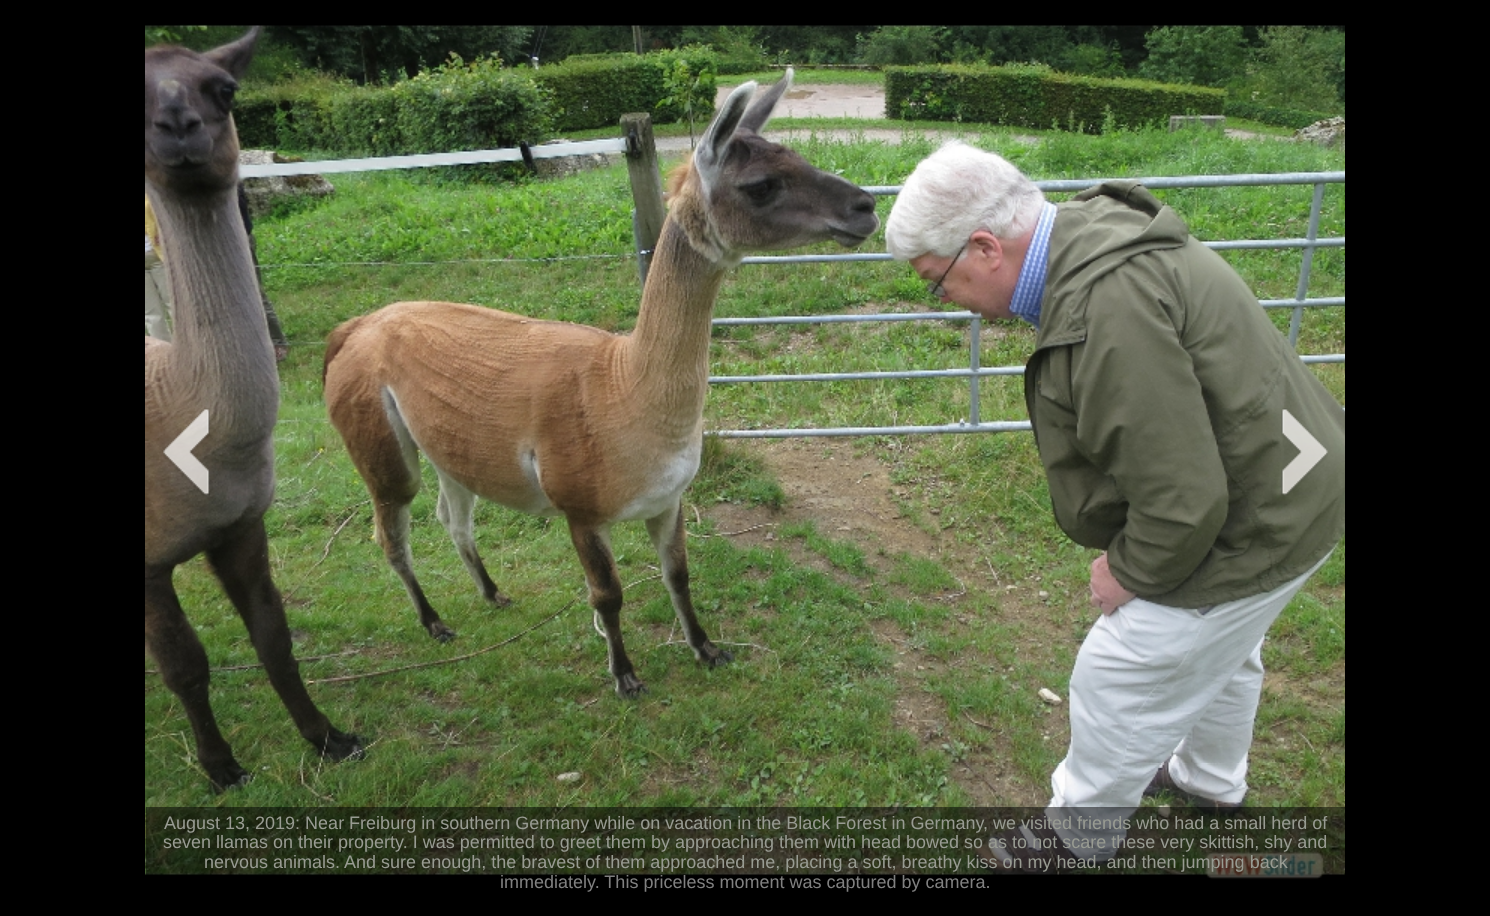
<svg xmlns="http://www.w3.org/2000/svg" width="1490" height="916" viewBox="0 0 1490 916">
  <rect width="100%" height="100%" fill="#000000"/>
  <image x="145" y="24" width="1200" height="856" href="img1.png"/>
  <image x="163" y="408" width="47" height="88" href="img2.png"/>
  <image x="1281" y="408" width="47" height="88" href="img3.png"/>
  <rect x="146" y="807" width="1199" height="73" fill="#000000" fill-opacity="0.5"/>
  <text x="164" y="829" font-family="Liberation Sans" font-size="18" fill="#989b92">August 13, 2019: Near Freiburg in southern Germany while on vacation in the Black Forest in Germany, we visited friends who had a small herd of</text>
  <text x="163" y="848" font-family="Liberation Sans" font-size="18" fill="#989b92">seven llamas on their property. I was permitted to greet them by approaching them with head bowed so as to not scare these very skittish, shy and</text>
  <text x="204" y="868" font-family="Liberation Sans" font-size="18" fill="#989b92">nervous animals. And sure enough, the bravest of them approached me, placing a soft, breathy kiss on my head, and then jumping back</text>
  <text x="500" y="888" font-family="Liberation Sans" font-size="18" fill="#808080">immediately. This priceless moment was captured by camera.</text>
</svg>
